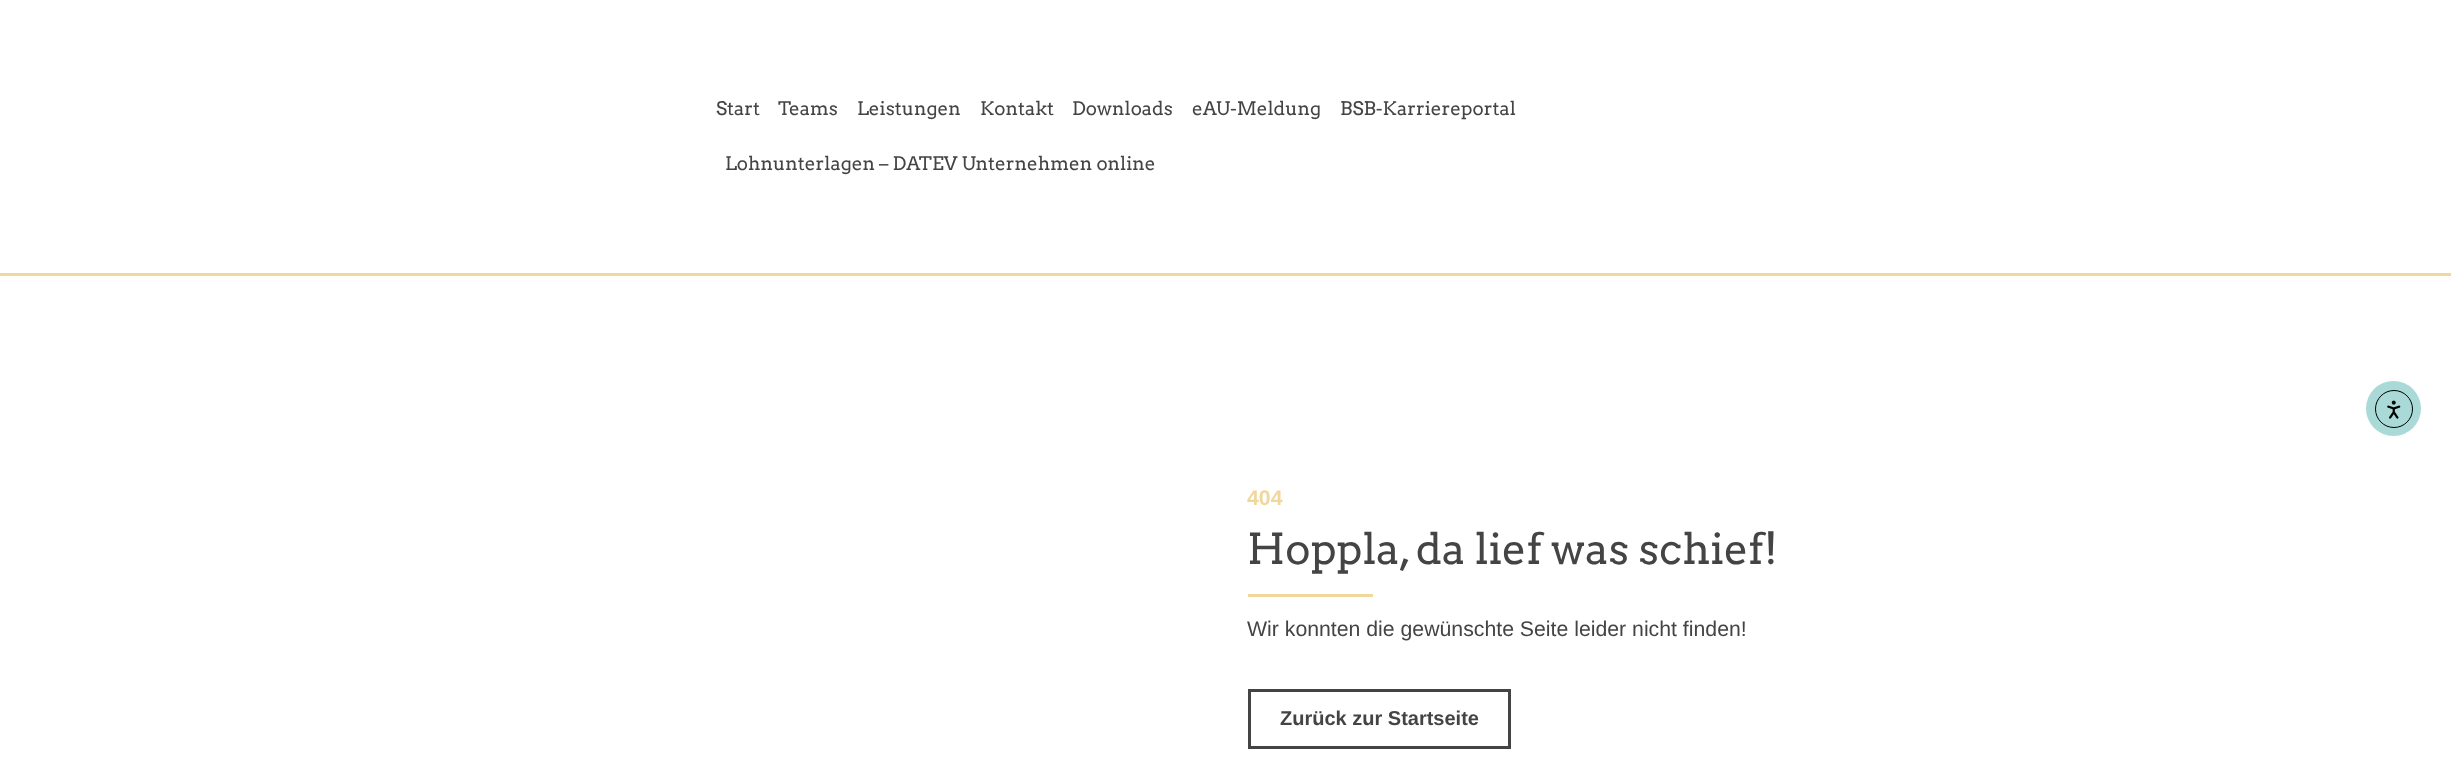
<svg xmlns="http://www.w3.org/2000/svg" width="2451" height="762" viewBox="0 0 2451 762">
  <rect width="100%" height="100%" fill="#ffffff"/>
  <rect x="0" y="273" width="2451" height="3" fill="#f0d79c"/>
  <text x="716" y="115" font-family="Arvo" font-size="18.75" fill="#444444">Start</text>
  <text x="778" y="115" font-family="Arvo" font-size="18.75" fill="#444444">Teams</text>
  <text x="857" y="115" font-family="Arvo" font-size="18.75" fill="#444444">Leistungen</text>
  <text x="980" y="115" font-family="Arvo" font-size="18.75" fill="#444444">Kontakt</text>
  <text x="1072" y="115" font-family="Arvo" font-size="18.75" fill="#444444">Downloads</text>
  <text x="1192" y="115" font-family="Arvo" font-size="18.75" fill="#444444">eAU-Meldung</text>
  <text x="1340" y="115" font-family="Arvo" font-size="18.75" fill="#444444">BSB-Karriereportal</text>
  <text x="725" y="170" font-family="Arvo" font-size="18.75" fill="#444444">Lohnunterlagen – DATEV Unternehmen online</text>
  <circle cx="2393.5" cy="408.5" r="27.5" fill="#a9dad7"/>
  <circle cx="2394" cy="409" r="18.5" fill="none" stroke="#000000"/>
  <image x="2387" y="400" width="14" height="19" href="img1.png"/>
  <text x="1247" y="505" font-family="Liberation Sans" font-size="21.25" font-weight="bold" fill="#f0d79c">404</text>
  <text x="1247" y="564" font-family="Arvo" font-size="42.5" fill="#444444">Hoppla, da lief was schief!</text>
  <rect x="1248" y="594" width="125" height="3" fill="#f0d79c"/>
  <text x="1247" y="636" font-family="Liberation Sans" font-size="21.25" fill="#444444">Wir konnten die gewünschte Seite leider nicht finden!</text>
  <rect x="1249.5" y="690.5" width="260" height="57" fill="none" stroke="#444444" stroke-width="3"/>
  <text x="1280" y="725" font-family="Liberation Sans" font-size="20" font-weight="bold" fill="#444444">Zurück zur Startseite</text>
</svg>
